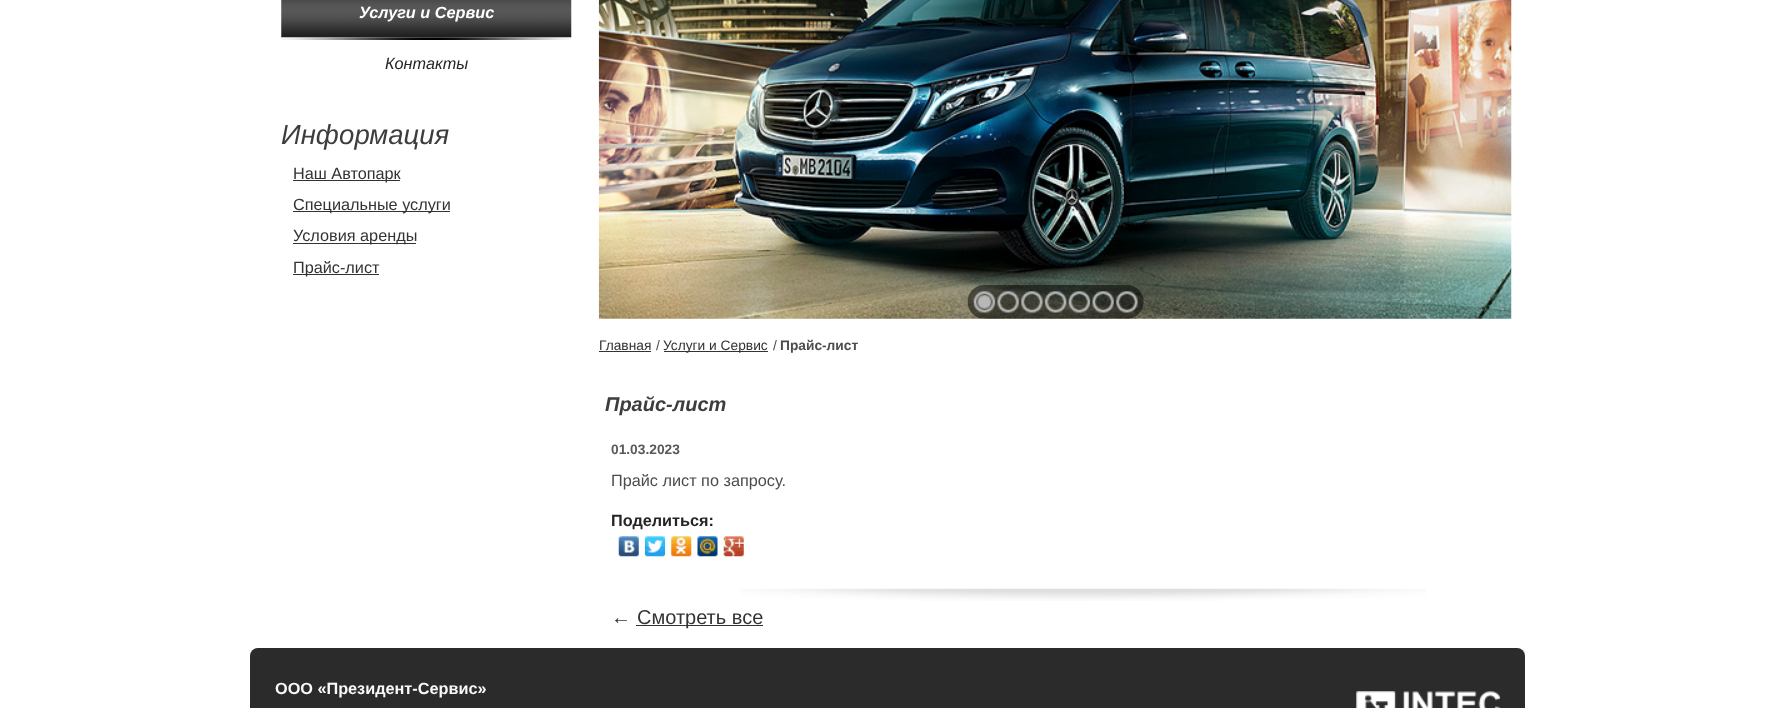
<svg xmlns="http://www.w3.org/2000/svg" width="1775" height="708" viewBox="0 0 1775 708">
  <rect width="100%" height="100%" fill="#ffffff"/>
  <image x="281" y="0" width="291" height="38" href="img1.png"/>
  <text x="359" y="18" font-family="Liberation Sans" font-size="16.25" font-weight="bold" font-style="italic" fill="#ffffff">Услуги и Сервис</text>
  <image x="281" y="37" width="290" height="3" href="img2.png"/>
  <text x="385" y="69" font-family="Liberation Sans" font-size="16.25" font-style="italic" fill="#252525">Контакты</text>
  <text x="281" y="144" font-family="Liberation Sans" font-size="27.5" font-style="italic" fill="#3d3d3d">Информация</text>
  <rect x="293" y="180" width="107" height="1" fill="#333333"/>
  <text x="293" y="179" font-family="Liberation Sans" font-size="16.25" fill="#333333">Наш Автопарк</text>
  <rect x="293" y="211" width="157" height="1" fill="#333333"/>
  <text x="293" y="210" font-family="Liberation Sans" font-size="16.25" fill="#333333">Специальные услуги</text>
  <rect x="293" y="243" width="123" height="1" fill="#333333"/>
  <text x="293" y="241" font-family="Liberation Sans" font-size="16.25" fill="#333333">Условия аренды</text>
  <rect x="293" y="274" width="86" height="1" fill="#333333"/>
  <text x="293" y="273" font-family="Liberation Sans" font-size="16.25" fill="#333333">Прайс-лист</text>
  <image x="598" y="0" width="914" height="319" href="img3.png"/>
  <image x="967" y="285" width="177" height="34" href="img4.png"/>
  <image x="973" y="291" width="23" height="22" href="img5.png"/>
  <image x="997" y="291" width="22" height="22" href="img6.png"/>
  <image x="1021" y="291" width="22" height="22" href="img7.png"/>
  <image x="1044" y="291" width="23" height="22" href="img8.png"/>
  <image x="1068" y="291" width="23" height="22" href="img9.png"/>
  <image x="1092" y="291" width="22" height="22" href="img10.png"/>
  <image x="1116" y="291" width="22" height="22" href="img11.png"/>
  <text x="599" y="350" font-family="Liberation Sans" font-size="13.75" fill="#333333">Главная</text>
  <rect x="599" y="351" width="52" height="1" fill="#333333"/>
  <text x="656" y="350" font-family="Liberation Sans" font-size="13.75" fill="#4c4c4c">/</text>
  <rect x="664" y="351" width="104" height="1" fill="#333333"/>
  <text x="663" y="350" font-family="Liberation Sans" font-size="13.75" fill="#333333">Услуги и Сервис</text>
  <text x="773" y="350" font-family="Liberation Sans" font-size="13.75" fill="#4c4c4c">/</text>
  <text x="780" y="350" font-family="Liberation Sans" font-size="13.75" font-weight="bold" fill="#4c4c4c">Прайс-лист</text>
  <text x="605" y="411" font-family="Liberation Sans" font-size="20" font-weight="bold" font-style="italic" fill="#3d3d3d">Прайс-лист</text>
  <text x="611" y="454" font-family="Liberation Sans" font-size="13.75" font-weight="bold" fill="#5a5a5a">01.03.2023</text>
  <text x="611" y="486" font-family="Liberation Sans" font-size="16.25" fill="#4c4c4c">Прайс лист по запросу.</text>
  <text x="611" y="526" font-family="Liberation Sans" font-size="16.25" font-weight="bold" fill="#252525">Поделиться:</text>
  <image x="618" y="536" width="21" height="21" href="img12.png"/>
  <image x="645" y="536" width="20" height="21" href="img13.png"/>
  <image x="671" y="536" width="21" height="21" href="img14.png"/>
  <image x="697" y="536" width="21" height="21" href="img15.png"/>
  <image x="723" y="536" width="21" height="21" href="img16.png"/>
  <image x="741" y="588" width="685" height="13" href="img17.png"/>
  <text x="611" y="624" font-family="Liberation Sans" font-size="20" fill="#333333">←</text>
  <rect x="636" y="625" width="127" height="1" fill="#333333"/>
  <text x="637" y="624" font-family="Liberation Sans" font-size="20" fill="#333333">Смотреть все</text>
  <rect x="250" y="648" width="1275" height="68" rx="8" fill="#2b2b2b"/>
  <text x="275" y="694" font-family="Liberation Sans" font-size="16.25" font-weight="bold" fill="#f9f9f9">ООО «Президент-Сервис»</text>
  <image x="1356" y="691" width="144" height="17" href="img18.png"/>
</svg>
